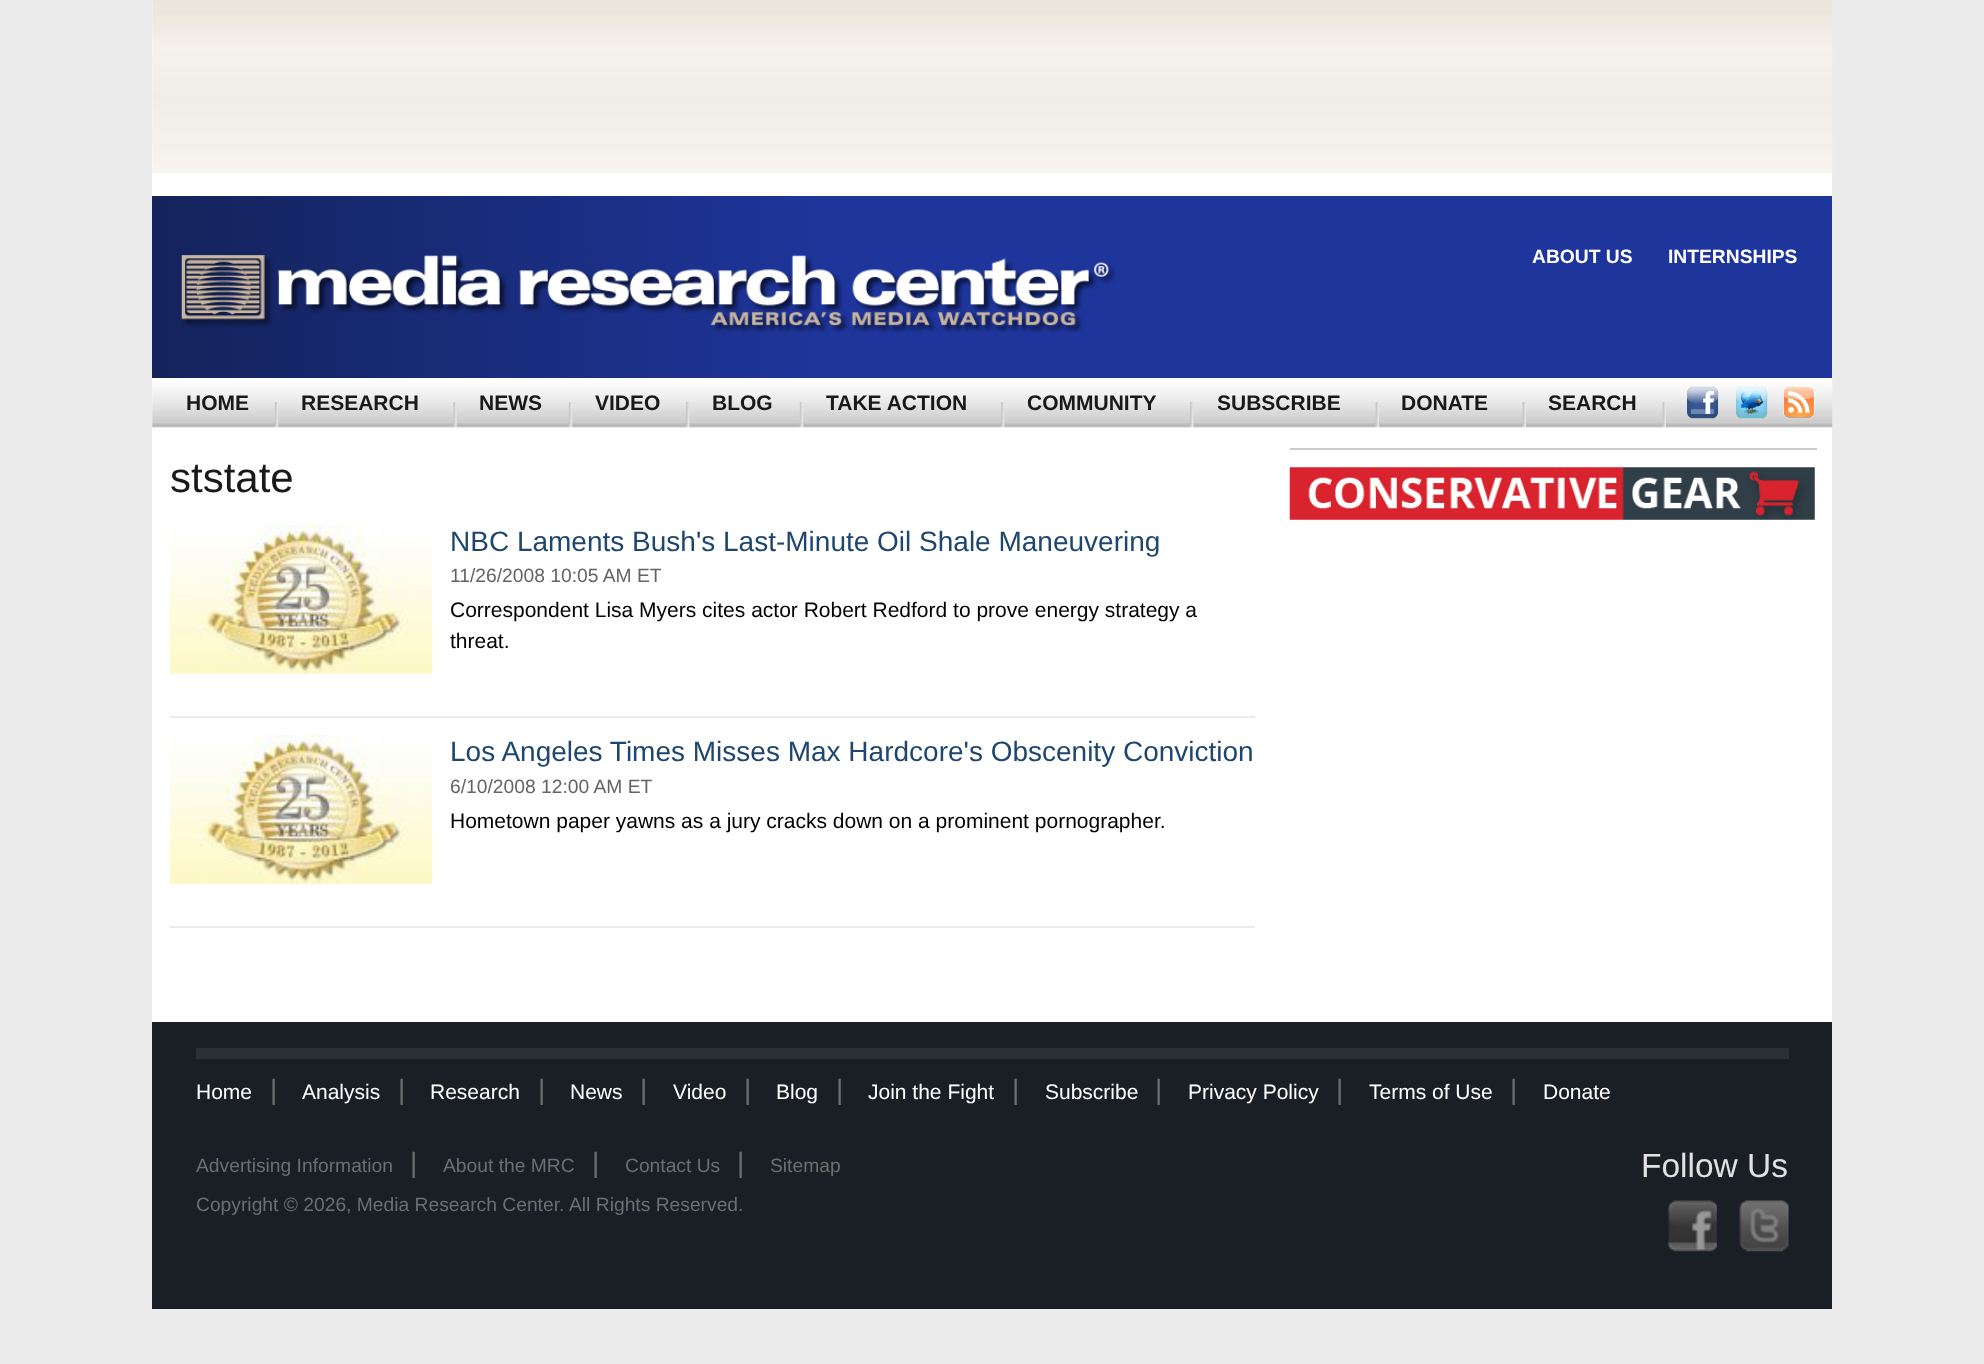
<svg xmlns="http://www.w3.org/2000/svg" width="1984" height="1364" viewBox="0 0 1984 1364">
  <defs>
    <linearGradient id="g1" gradientUnits="userSpaceOnUse" x1="152" y1="287" x2="1832" y2="287"><stop offset="0" stop-color="#14235b"/><stop offset="0.4" stop-color="#1e359b"/><stop offset="1" stop-color="#1e359b"/></linearGradient>
  </defs>
  <rect width="100%" height="100%" fill="#ebebeb"/>
  <rect x="152" y="0" width="1680" height="1022" fill="#ffffff"/>
  <image x="152" y="0" width="1681" height="174" href="img1.png"/>
  <rect x="152" y="196" width="1680" height="182" fill="url(#g1)"/>
  <image x="181" y="255" width="935" height="78" href="img2.png"/>
  <text x="1532" y="263" font-family="Liberation Sans" font-size="19.25" font-weight="bold" fill="#ffffff">ABOUT US</text>
  <text x="1668" y="263" font-family="Liberation Sans" font-size="19.25" font-weight="bold" fill="#ffffff">INTERNSHIPS</text>
  <image x="152" y="378" width="1681" height="50" href="img3.png"/>
  <text x="186" y="410" font-family="Liberation Sans" font-size="21" font-weight="bold" fill="#191919">HOME</text>
  <image x="274" y="402" width="5" height="26" href="img4.png"/>
  <text x="301" y="410" font-family="Liberation Sans" font-size="21" font-weight="bold" fill="#191919">RESEARCH</text>
  <image x="453" y="402" width="4" height="26" href="img5.png"/>
  <text x="479" y="410" font-family="Liberation Sans" font-size="21" font-weight="bold" fill="#191919">NEWS</text>
  <image x="568" y="402" width="5" height="26" href="img4.png"/>
  <text x="595" y="410" font-family="Liberation Sans" font-size="21" font-weight="bold" fill="#191919">VIDEO</text>
  <image x="686" y="402" width="4" height="26" href="img6.png"/>
  <text x="712" y="410" font-family="Liberation Sans" font-size="21" font-weight="bold" fill="#191919">BLOG</text>
  <image x="799" y="402" width="5" height="26" href="img4.png"/>
  <text x="826" y="410" font-family="Liberation Sans" font-size="21" font-weight="bold" fill="#191919">TAKE ACTION</text>
  <image x="1001" y="402" width="4" height="26" href="img6.png"/>
  <text x="1027" y="410" font-family="Liberation Sans" font-size="21" font-weight="bold" fill="#191919">COMMUNITY</text>
  <image x="1190" y="402" width="4" height="26" href="img6.png"/>
  <text x="1217" y="410" font-family="Liberation Sans" font-size="21" font-weight="bold" fill="#191919">SUBSCRIBE</text>
  <image x="1375" y="402" width="4" height="26" href="img7.png"/>
  <text x="1401" y="410" font-family="Liberation Sans" font-size="21" font-weight="bold" fill="#191919">DONATE</text>
  <image x="1522" y="402" width="4" height="26" href="img7.png"/>
  <text x="1548" y="410" font-family="Liberation Sans" font-size="21" font-weight="bold" fill="#191919">SEARCH</text>
  <image x="1662" y="402" width="4" height="26" href="img7.png"/>
  <image x="1687" y="386" width="32" height="33" href="img8.png"/>
  <image x="1736" y="386" width="32" height="33" href="img9.png"/>
  <image x="1783" y="386" width="32" height="33" href="img10.png"/>
  <text x="170" y="492" font-family="Liberation Sans" font-size="42" fill="#191919">ststate</text>
  <rect x="170" y="716" width="1085" height="2" fill="#ebebeb"/>
  <image x="169" y="525" width="264" height="149" href="img11.png"/>
  <text x="450" y="551" font-family="Liberation Sans" font-size="28" fill="#1e466e">NBC Laments Bush's Last-Minute Oil Shale Maneuvering</text>
  <text x="450" y="582" font-family="Liberation Sans" font-size="19.25" fill="#646464">11/26/2008 10:05 AM ET</text>
  <text x="450" y="617" font-family="Liberation Sans" font-size="21" fill="#000000">Correspondent Lisa Myers cites actor Robert Redford to prove energy strategy a</text>
  <text x="450" y="648" font-family="Liberation Sans" font-size="21" fill="#000000">threat.</text>
  <rect x="170" y="926" width="1085" height="2" fill="#ebebeb"/>
  <image x="169" y="735" width="264" height="149" href="img11.png"/>
  <text x="450" y="761" font-family="Liberation Sans" font-size="28" fill="#1e466e">Los Angeles Times Misses Max Hardcore's Obscenity Conviction</text>
  <text x="450" y="793" font-family="Liberation Sans" font-size="19.25" fill="#646464">6/10/2008 12:00 AM ET</text>
  <text x="450" y="828" font-family="Liberation Sans" font-size="21" fill="#000000">Hometown paper yawns as a jury cracks down on a prominent pornographer.</text>
  <rect x="1290" y="448" width="527" height="2" fill="#cccccc"/>
  <image x="1289" y="467" width="526" height="53" href="img12.png"/>
  <rect x="152" y="1022" width="1680" height="287" fill="#1a1f25"/>
  <rect x="196" y="1048" width="1593" height="11" fill="#2a3036"/>
  <text x="196" y="1099" font-family="Liberation Sans" font-size="21" fill="#ffffff">Home</text>
  <text x="270" y="1099" font-family="Liberation Sans" font-size="28" fill="#6a6f6f">|</text>
  <text x="302" y="1099" font-family="Liberation Sans" font-size="21" fill="#ffffff">Analysis</text>
  <text x="398" y="1099" font-family="Liberation Sans" font-size="28" fill="#6a6f6f">|</text>
  <text x="430" y="1099" font-family="Liberation Sans" font-size="21" fill="#ffffff">Research</text>
  <text x="538" y="1099" font-family="Liberation Sans" font-size="28" fill="#6a6f6f">|</text>
  <text x="570" y="1099" font-family="Liberation Sans" font-size="21" fill="#ffffff">News</text>
  <text x="640" y="1099" font-family="Liberation Sans" font-size="28" fill="#6a6f6f">|</text>
  <text x="673" y="1099" font-family="Liberation Sans" font-size="21" fill="#ffffff">Video</text>
  <text x="744" y="1099" font-family="Liberation Sans" font-size="28" fill="#6a6f6f">|</text>
  <text x="776" y="1099" font-family="Liberation Sans" font-size="21" fill="#ffffff">Blog</text>
  <text x="836" y="1099" font-family="Liberation Sans" font-size="28" fill="#6a6f6f">|</text>
  <text x="868" y="1099" font-family="Liberation Sans" font-size="21" fill="#ffffff">Join the Fight</text>
  <text x="1012" y="1099" font-family="Liberation Sans" font-size="28" fill="#6a6f6f">|</text>
  <text x="1045" y="1099" font-family="Liberation Sans" font-size="21" fill="#ffffff">Subscribe</text>
  <text x="1155" y="1099" font-family="Liberation Sans" font-size="28" fill="#6a6f6f">|</text>
  <text x="1188" y="1099" font-family="Liberation Sans" font-size="21" fill="#ffffff">Privacy Policy</text>
  <text x="1336" y="1099" font-family="Liberation Sans" font-size="28" fill="#6a6f6f">|</text>
  <text x="1369" y="1099" font-family="Liberation Sans" font-size="21" fill="#ffffff">Terms of Use</text>
  <text x="1510" y="1099" font-family="Liberation Sans" font-size="28" fill="#6a6f6f">|</text>
  <text x="1543" y="1099" font-family="Liberation Sans" font-size="21" fill="#ffffff">Donate</text>
  <text x="196" y="1172" font-family="Liberation Sans" font-size="19.25" fill="#6a6f6f">Advertising Information</text>
  <text x="410" y="1172" font-family="Liberation Sans" font-size="28" fill="#6a6f6f">|</text>
  <text x="443" y="1172" font-family="Liberation Sans" font-size="19.25" fill="#6a6f6f">About the MRC</text>
  <text x="592" y="1172" font-family="Liberation Sans" font-size="28" fill="#6a6f6f">|</text>
  <text x="625" y="1172" font-family="Liberation Sans" font-size="19.25" fill="#6a6f6f">Contact Us</text>
  <text x="737" y="1172" font-family="Liberation Sans" font-size="28" fill="#6a6f6f">|</text>
  <text x="770" y="1172" font-family="Liberation Sans" font-size="19.25" fill="#6a6f6f">Sitemap</text>
  <text x="1641" y="1177" font-family="Liberation Sans" font-size="33.5" fill="#e1e1e1">Follow Us</text>
  <image x="1667" y="1200" width="50" height="52" href="img13.png"/>
  <image x="1739" y="1200" width="50" height="52" href="img14.png"/>
  <text x="196" y="1211" font-family="Liberation Sans" font-size="19.25" fill="#6a6f6f">Copyright © 2026, Media Research Center.</text>
  <text x="569" y="1211" font-family="Liberation Sans" font-size="19.25" fill="#6a6f6f">All Rights Reserved.</text>
</svg>
